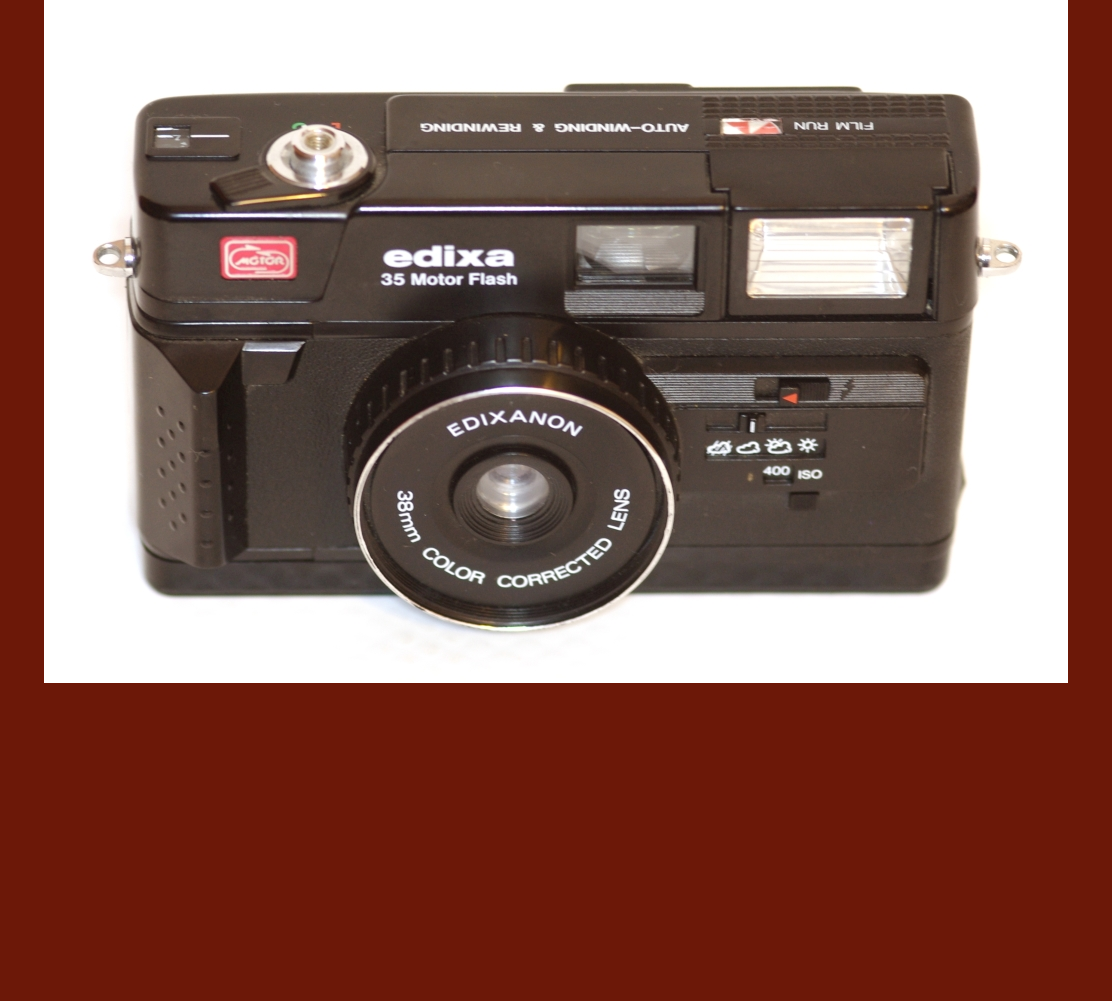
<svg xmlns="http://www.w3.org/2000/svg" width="1112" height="1001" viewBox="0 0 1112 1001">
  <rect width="100%" height="100%" fill="#6c1808"/>
  <image x="44" y="0" width="1024" height="683" href="img1.png"/>
</svg>
